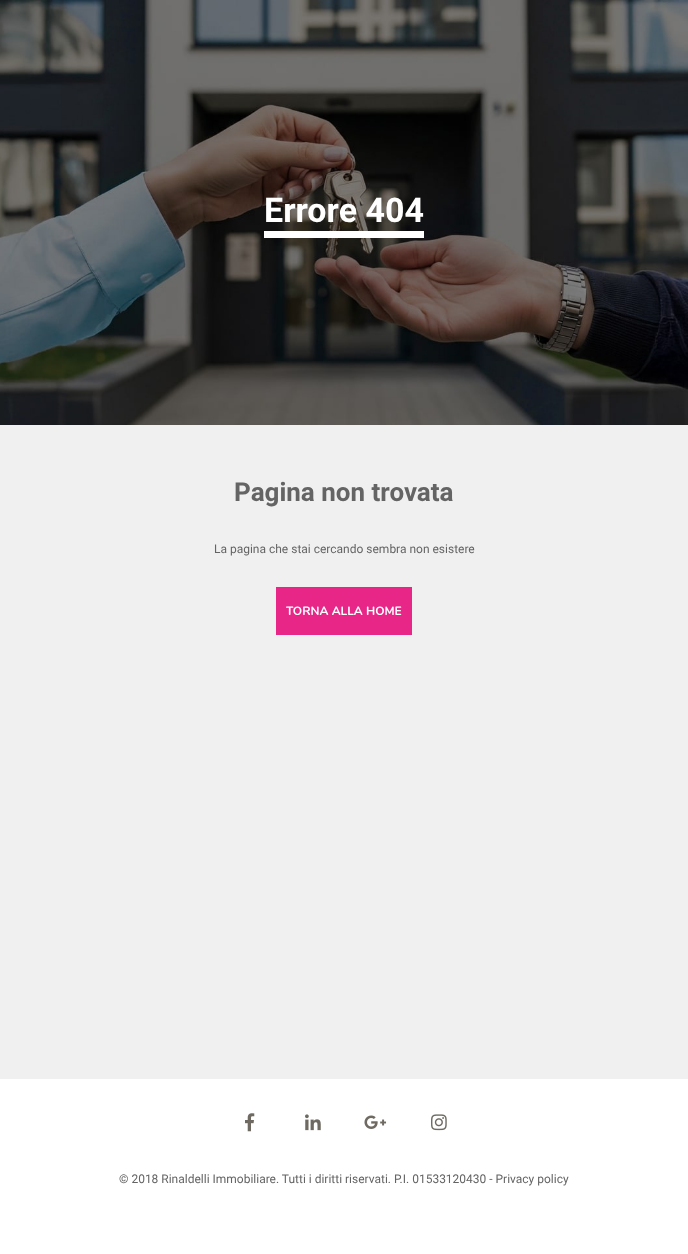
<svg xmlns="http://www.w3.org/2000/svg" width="688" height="1254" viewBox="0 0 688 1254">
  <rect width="100%" height="100%" fill="#ffffff"/>
  <image x="0" y="0" width="688" height="425" href="img1.png"/>
  <text x="264" y="222" font-family="Roboto" font-size="34" font-weight="bold" fill="#ffffff">Errore 404</text>
  <rect x="264" y="231" width="160" height="7" fill="#ffffff"/>
  <rect x="0" y="425" width="688" height="654" fill="#f0f0f0"/>
  <text x="234" y="501" font-family="Roboto" font-size="26" font-weight="bold" fill="#646464">Pagina non trovata</text>
  <text x="214" y="553" font-family="Roboto" font-size="12" fill="#646464">La pagina che stai cercando sembra non esistere</text>
  <rect x="276" y="587" width="136" height="48" fill="#e72687"/>
  <text x="286" y="615" font-family="Nunito" font-size="12" font-weight="bold" fill="#ffffff">TORNA ALLA HOME</text>
  <image x="245" y="1113" width="10" height="19" href="img2.png"/>
  <image x="305" y="1114" width="16" height="17" href="img3.png"/>
  <image x="364" y="1115" width="23" height="14" href="img4.png"/>
  <image x="431" y="1114" width="16" height="17" href="img5.png"/>
  <text x="119" y="1183" font-family="Roboto" font-size="12" fill="#646464">© 2018 Rinaldelli Immobiliare. Tutti i diritti riservati. P.I. 01533120430 - Privacy policy</text>
</svg>
